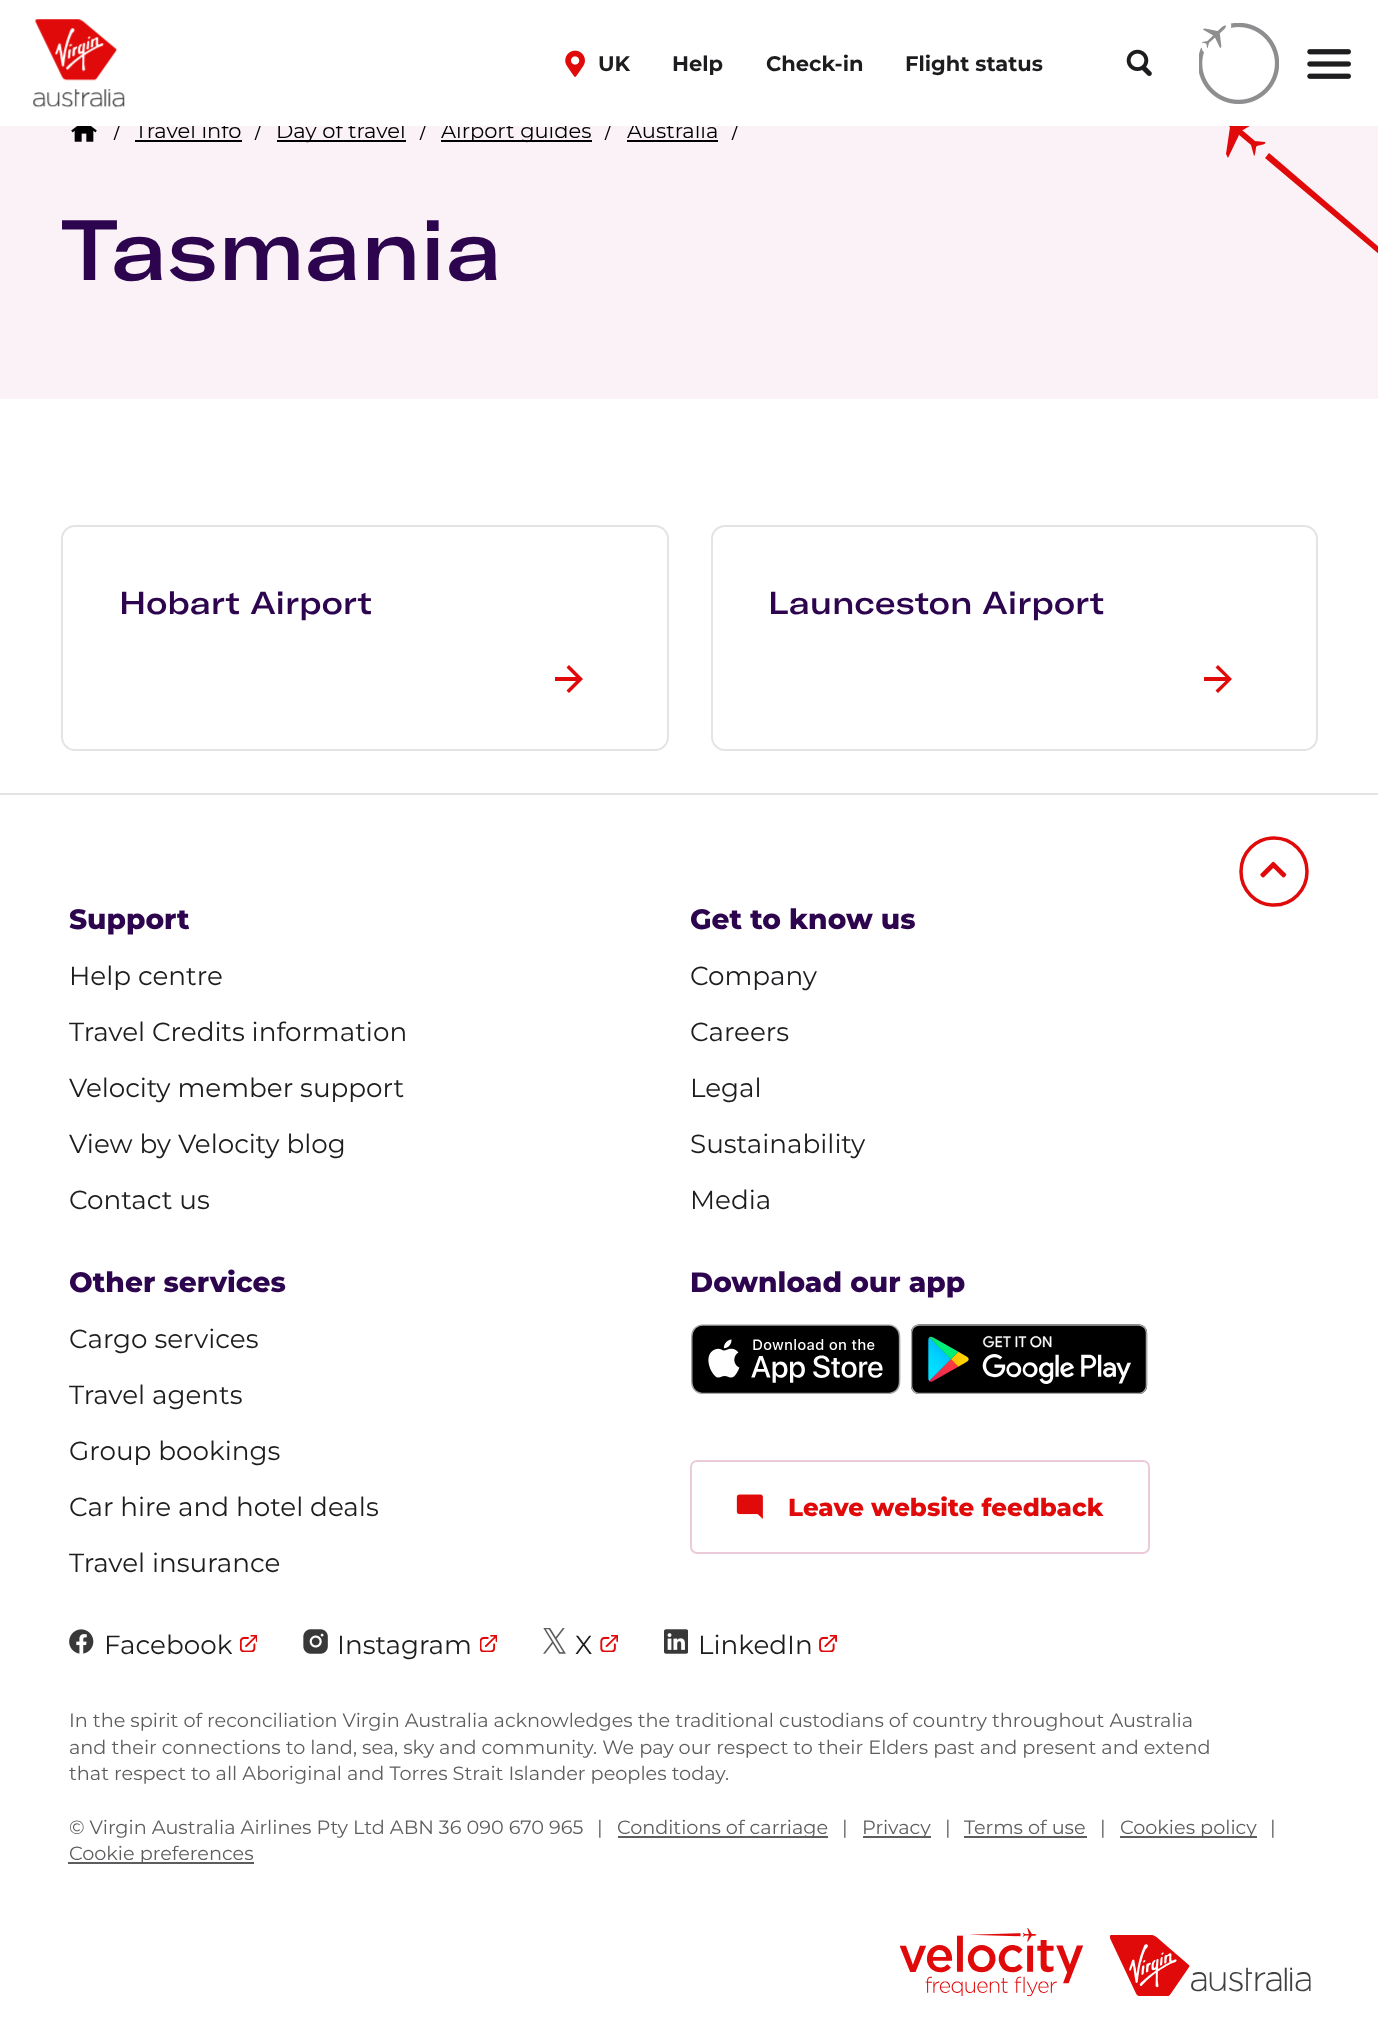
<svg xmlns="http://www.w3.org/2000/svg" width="1378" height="2018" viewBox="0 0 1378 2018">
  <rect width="100%" height="100%" fill="#ffffff"/>
  <rect x="0" y="126" width="1378" height="273" fill="#faf2f6"/>
  <text x="114" y="138" font-family="Montserrat" font-size="21" fill="#000000">/</text>
  <text x="135" y="138" font-family="Montserrat" font-size="21" fill="#000000">Travel info</text>
  <text x="255" y="138" font-family="Montserrat" font-size="21" fill="#000000">/</text>
  <rect x="277" y="140" width="129" height="2" fill="#000000"/>
  <text x="276" y="138" font-family="Montserrat" font-size="21" fill="#000000">Day of travel</text>
  <text x="420" y="138" font-family="Montserrat" font-size="21" fill="#000000">/</text>
  <rect x="441" y="140" width="151" height="2" fill="#000000"/>
  <text x="441" y="138" font-family="Montserrat" font-size="21" fill="#000000">Airport guides</text>
  <text x="605" y="138" font-family="Montserrat" font-size="21" fill="#000000">/</text>
  <text x="627" y="138" font-family="Montserrat" font-size="21" fill="#000000">Australia</text>
  <text x="732" y="138" font-family="Montserrat" font-size="21" fill="#000000">/</text>
  <path d="M1260 115L1235 122C1231 119 1223 110 1218 112C1217 117 1227 124 1230 127L1226 154L1228 158L1239 135L1238 134L1251 145L1254 156C1255 156 1256 149 1256 147L1257 146C1261 145 1267 144 1265 142L1255 141L1242 130H1243L1265 117C1262 115 1260 115 1260 115" fill="#e10a0a" fill-rule="evenodd"/>
  <rect x="118" y="111" width="1147" height="15" fill="#ffffff"/>
  <image x="33" y="19" width="92" height="89" href="img1.png"/>
  <image x="565" y="50" width="20" height="27" href="img2.png"/>
  <text x="598" y="71" font-family="Montserrat" font-size="21" font-weight="bold" fill="#1d1c1f">UK</text>
  <text x="672" y="71" font-family="Montserrat" font-size="21" font-weight="bold" fill="#1d1c1f">Help</text>
  <text x="766" y="71" font-family="Montserrat" font-size="21" font-weight="bold" fill="#1d1c1f">Check-in</text>
  <text x="905" y="71" font-family="Montserrat" font-size="21" font-weight="bold" fill="#1d1c1f">Flight status</text>
  <image x="1126" y="49" width="26" height="27" href="img3.png"/>
  <image x="1199" y="23" width="80" height="81" href="img4.png"/>
  <image x="1307" y="49" width="44" height="30" href="img5.png"/>
  <image x="71" y="126" width="26" height="16" href="img6.png"/>
  <rect x="135" y="140" width="107" height="2" fill="#000000"/>
  <rect x="627" y="140" width="91" height="2" fill="#000000"/>
  <text x="61" y="280" font-family="GT America" font-size="84" font-weight="500" fill="#2d054e">Tasmania</text>
  <path d="M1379 247L1269 153L1265 158L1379 254Z" fill="#e10a0a" fill-rule="evenodd"/>
  <rect x="62" y="526" width="606" height="224" rx="13" fill="none" stroke="#e4e4e4" stroke-width="2"/>
  <text x="119" y="614" font-family="GT America" font-size="31.5" font-weight="500" fill="#2d054e">Hobart Airport</text>
  <path d="M555 677H576L566.5 667.5L569 665L583 679L569 693L566.5 690.5L576 681H555Z" fill="#e10a0a" fill-rule="evenodd"/>
  <rect x="712" y="526" width="605" height="224" rx="13" fill="none" stroke="#e4e4e4" stroke-width="2"/>
  <text x="768" y="614" font-family="GT America" font-size="31.5" font-weight="500" fill="#2d054e">Launceston Airport</text>
  <path d="M1204 677H1225.5L1215.5 667.5L1218 665L1232 679L1218 693L1215.5 690.5L1225.5 681H1204Z" fill="#e10a0a" fill-rule="evenodd"/>
  <rect x="0" y="793" width="1378" height="2" fill="#e4e4e4"/>
  <path d="M1274 905C1255.5 905 1241 890 1241 871.5C1241 853 1255.5 838 1274 838C1292.5 838 1307 853 1307 871.5C1307 890 1292.5 905 1274 905Z" fill="none" stroke="#e10a0a" stroke-width="3.5"/>
  <image x="1260" y="861" width="27" height="17" href="img7.png"/>
  <text x="69" y="929" font-family="Montserrat" font-size="28" font-weight="800" fill="#2d054e">Support</text>
  <text x="69" y="985" font-family="Montserrat" font-size="26.25" fill="#1d1c1f">Help centre</text>
  <text x="69" y="1041" font-family="Montserrat" font-size="26.25" fill="#1d1c1f">Travel Credits information</text>
  <text x="69" y="1097" font-family="Montserrat" font-size="26.25" fill="#1d1c1f">Velocity member support</text>
  <text x="69" y="1153" font-family="Montserrat" font-size="26.25" fill="#1d1c1f">View by Velocity blog</text>
  <text x="69" y="1209" font-family="Montserrat" font-size="26.25" fill="#1d1c1f">Contact us</text>
  <text x="690" y="929" font-family="Montserrat" font-size="28" font-weight="800" fill="#2d054e">Get to know us</text>
  <text x="690" y="985" font-family="Montserrat" font-size="26.25" fill="#1d1c1f">Company</text>
  <text x="690" y="1041" font-family="Montserrat" font-size="26.25" fill="#1d1c1f">Careers</text>
  <text x="690" y="1097" font-family="Montserrat" font-size="26.25" fill="#1d1c1f">Legal</text>
  <text x="690" y="1153" font-family="Montserrat" font-size="26.25" fill="#1d1c1f">Sustainability</text>
  <text x="690" y="1209" font-family="Montserrat" font-size="26.25" fill="#1d1c1f">Media</text>
  <text x="69" y="1292" font-family="Montserrat" font-size="28" font-weight="800" fill="#2d054e">Other services</text>
  <text x="69" y="1348" font-family="Montserrat" font-size="26.25" fill="#1d1c1f">Cargo services</text>
  <text x="69" y="1404" font-family="Montserrat" font-size="26.25" fill="#1d1c1f">Travel agents</text>
  <text x="69" y="1460" font-family="Montserrat" font-size="26.25" fill="#1d1c1f">Group bookings</text>
  <text x="69" y="1516" font-family="Montserrat" font-size="26.25" fill="#1d1c1f">Car hire and hotel deals</text>
  <text x="69" y="1572" font-family="Montserrat" font-size="26.25" fill="#1d1c1f">Travel insurance</text>
  <text x="690" y="1292" font-family="Montserrat" font-size="28" font-weight="800" fill="#2d054e">Download our app</text>
  <image x="691" y="1324" width="210" height="70" href="img8.png"/>
  <image x="910" y="1324" width="238" height="70" href="img9.png"/>
  <rect x="691" y="1461" width="458" height="92" rx="6" fill="none" stroke="#ebcada" stroke-width="2"/>
  <image x="736" y="1494" width="27" height="25" href="img10.png"/>
  <text x="788" y="1516" font-family="Montserrat" font-size="24.5" font-weight="800" fill="#e10a0a">Leave website feedback</text>
  <image x="69" y="1629" width="25" height="25" href="img11.png"/>
  <text x="104" y="1654" font-family="Montserrat" font-size="26.25" fill="#1d1c1f">Facebook</text>
  <image x="240" y="1635" width="17" height="17" href="img12.png"/>
  <image x="303" y="1629" width="25" height="25" href="img13.png"/>
  <text x="337" y="1654" font-family="Montserrat" font-size="26.25" fill="#1d1c1f">Instagram</text>
  <image x="480" y="1635" width="17" height="17" href="img14.png"/>
  <image x="543" y="1628" width="23" height="26" href="img15.png"/>
  <text x="575" y="1654" font-family="Montserrat" font-size="26.25" fill="#1d1c1f">X</text>
  <image x="600" y="1635" width="18" height="17" href="img16.png"/>
  <image x="664" y="1629" width="24" height="25" href="img17.png"/>
  <text x="698" y="1654" font-family="Montserrat" font-size="26.25" fill="#1d1c1f">LinkedIn</text>
  <image x="819" y="1635" width="18" height="17" href="img18.png"/>
  <text x="69" y="1727" font-family="Montserrat" font-size="19.25" fill="#5d5c5f">In the spirit of reconciliation Virgin Australia acknowledges the traditional custodians of country throughout Australia</text>
  <text x="69" y="1754" font-family="Montserrat" font-size="19.25" fill="#5d5c5f">and their connections to land, sea, sky and community. We pay our respect to their Elders past and present and extend</text>
  <text x="69" y="1780" font-family="Montserrat" font-size="19.25" fill="#5d5c5f">that respect to all Aboriginal and Torres Strait Islander peoples today.</text>
  <text x="69" y="1834" font-family="Montserrat" font-size="19.25" fill="#5d5c5f">© Virgin Australia Airlines Pty Ltd ABN 36 090 670 965</text>
  <text x="597" y="1834" font-family="Montserrat" font-size="19.25" fill="#5d5c5f">|</text>
  <rect x="618" y="1836" width="210" height="2" fill="#5d5c5f"/>
  <text x="617" y="1834" font-family="Montserrat" font-size="19.25" fill="#5d5c5f">Conditions of carriage</text>
  <text x="842" y="1834" font-family="Montserrat" font-size="19.25" fill="#5d5c5f">|</text>
  <rect x="863" y="1836" width="68" height="2" fill="#5d5c5f"/>
  <text x="862" y="1834" font-family="Montserrat" font-size="19.25" fill="#5d5c5f">Privacy</text>
  <text x="945" y="1834" font-family="Montserrat" font-size="19.25" fill="#5d5c5f">|</text>
  <text x="964" y="1834" font-family="Montserrat" font-size="19.25" fill="#5d5c5f">Terms of use</text>
  <rect x="964" y="1836" width="123" height="2" fill="#5d5c5f"/>
  <text x="1100" y="1834" font-family="Montserrat" font-size="19.25" fill="#5d5c5f">|</text>
  <rect x="1120" y="1836" width="137" height="2" fill="#5d5c5f"/>
  <text x="1120" y="1834" font-family="Montserrat" font-size="19.25" fill="#5d5c5f">Cookies policy</text>
  <text x="1270" y="1834" font-family="Montserrat" font-size="19.25" fill="#5d5c5f">|</text>
  <rect x="68" y="1862" width="186" height="2" fill="#5d5c5f"/>
  <text x="69" y="1860" font-family="Montserrat" font-size="19.25" fill="#5d5c5f">Cookie preferences</text>
  <image x="900" y="1928" width="183" height="68" href="img19.png"/>
  <image x="1110" y="1935" width="201" height="61" href="img20.png"/>
</svg>
